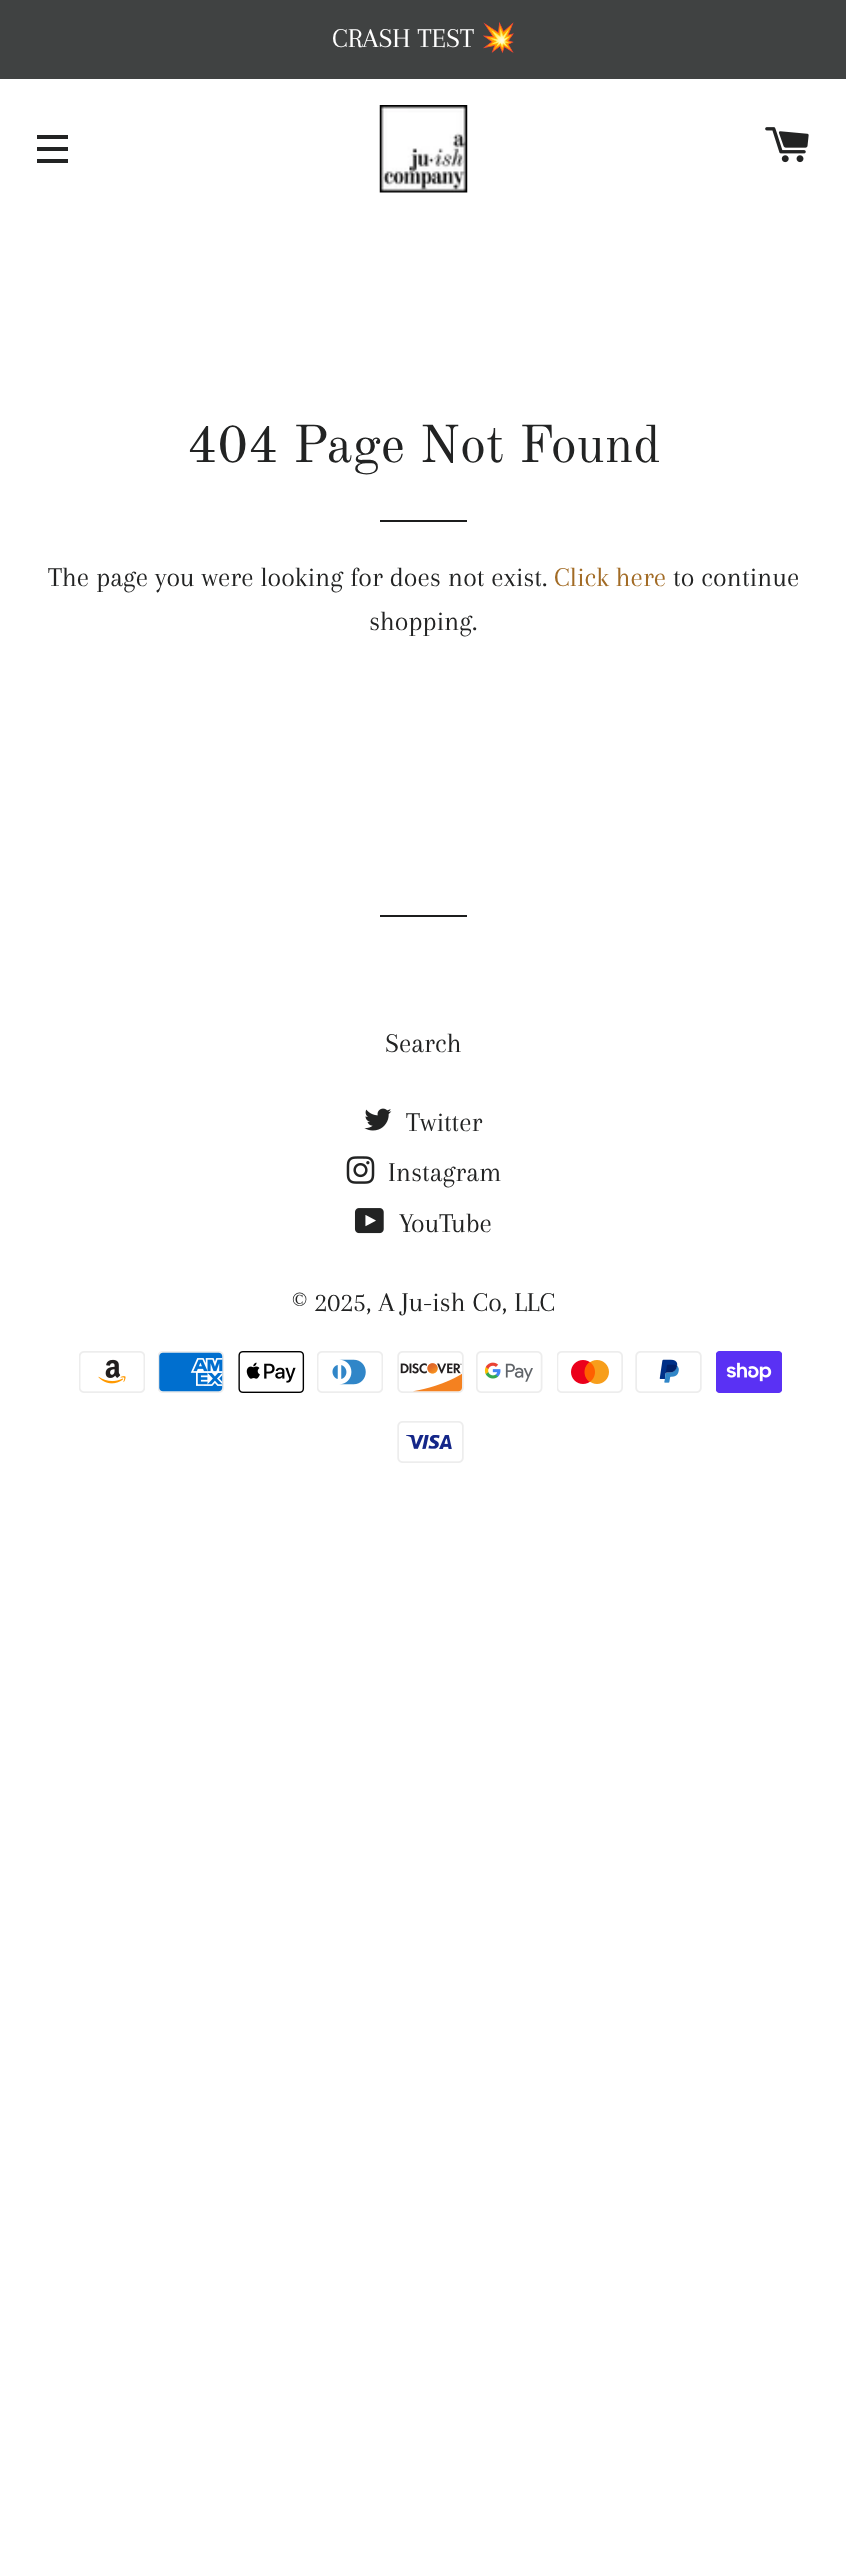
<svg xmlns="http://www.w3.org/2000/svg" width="846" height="2564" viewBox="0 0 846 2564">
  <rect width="100%" height="100%" fill="#ffffff"/>
  <rect x="0" y="0" width="846" height="79" fill="#404242"/>
  <text x="332" y="47" font-family="Arapey" font-size="28" fill="#ffffff">CRASH TEST</text>
  <text x="481" y="47" font-family="Noto Color Emoji" font-size="28" fill="#ffffff">💥</text>
  <rect x="37" y="135" width="31" height="4" fill="#222323"/>
  <rect x="37" y="147" width="31" height="4" fill="#222323"/>
  <rect x="37" y="159" width="31" height="4" fill="#222323"/>
  <image x="379" y="105" width="89" height="88" href="img1.png"/>
  <image x="765" y="127" width="44" height="36" href="img2.png"/>
  <text x="187" y="462" font-family="Old Standard TT" font-size="52.5" fill="#222323">404 Page Not Found</text>
  <rect x="380" y="520" width="87" height="2" fill="#1c1d1d"/>
  <text x="48" y="586" font-family="Arapey" font-size="28" fill="#222323">The page you were looking for does not exist.</text>
  <text x="554" y="586" font-family="Arapey" font-size="28" fill="#a26b25">Click here</text>
  <text x="673" y="586" font-family="Arapey" font-size="28" fill="#222323">to continue</text>
  <text x="369" y="630" font-family="Arapey" font-size="28" fill="#222323">shopping.</text>
  <rect x="380" y="915" width="87" height="2" fill="#1c1d1d"/>
  <text x="385" y="1052" font-family="Arapey" font-size="28" fill="#222323">Search</text>
  <image x="364" y="1108" width="28" height="23" href="img3.png"/>
  <text x="406" y="1131" font-family="Arapey" font-size="28" fill="#222323">Twitter</text>
  <image x="346" y="1156" width="29" height="28" href="img4.png"/>
  <text x="388" y="1181" font-family="Arapey" font-size="28" fill="#222323">Instagram</text>
  <image x="354" y="1208" width="30" height="26" href="img5.png"/>
  <text x="399" y="1232" font-family="Arapey" font-size="28" fill="#222323">YouTube</text>
  <text x="292" y="1311" font-family="Arapey" font-size="28" fill="#222323">© 2025, A Ju-ish Co, LLC</text>
  <image x="79" y="1351" width="66" height="42" href="img6.png"/>
  <image x="158" y="1351" width="66" height="42" href="img7.png"/>
  <image x="238" y="1351" width="67" height="42" href="img8.png"/>
  <image x="317" y="1351" width="66" height="42" href="img9.png"/>
  <image x="397" y="1351" width="67" height="42" href="img10.png"/>
  <image x="476" y="1351" width="67" height="42" href="img11.png"/>
  <image x="557" y="1351" width="66" height="42" href="img12.png"/>
  <image x="635" y="1351" width="67" height="42" href="img13.png"/>
  <image x="716" y="1351" width="66" height="42" href="img14.png"/>
  <image x="397" y="1421" width="67" height="42" href="img15.png"/>
</svg>
